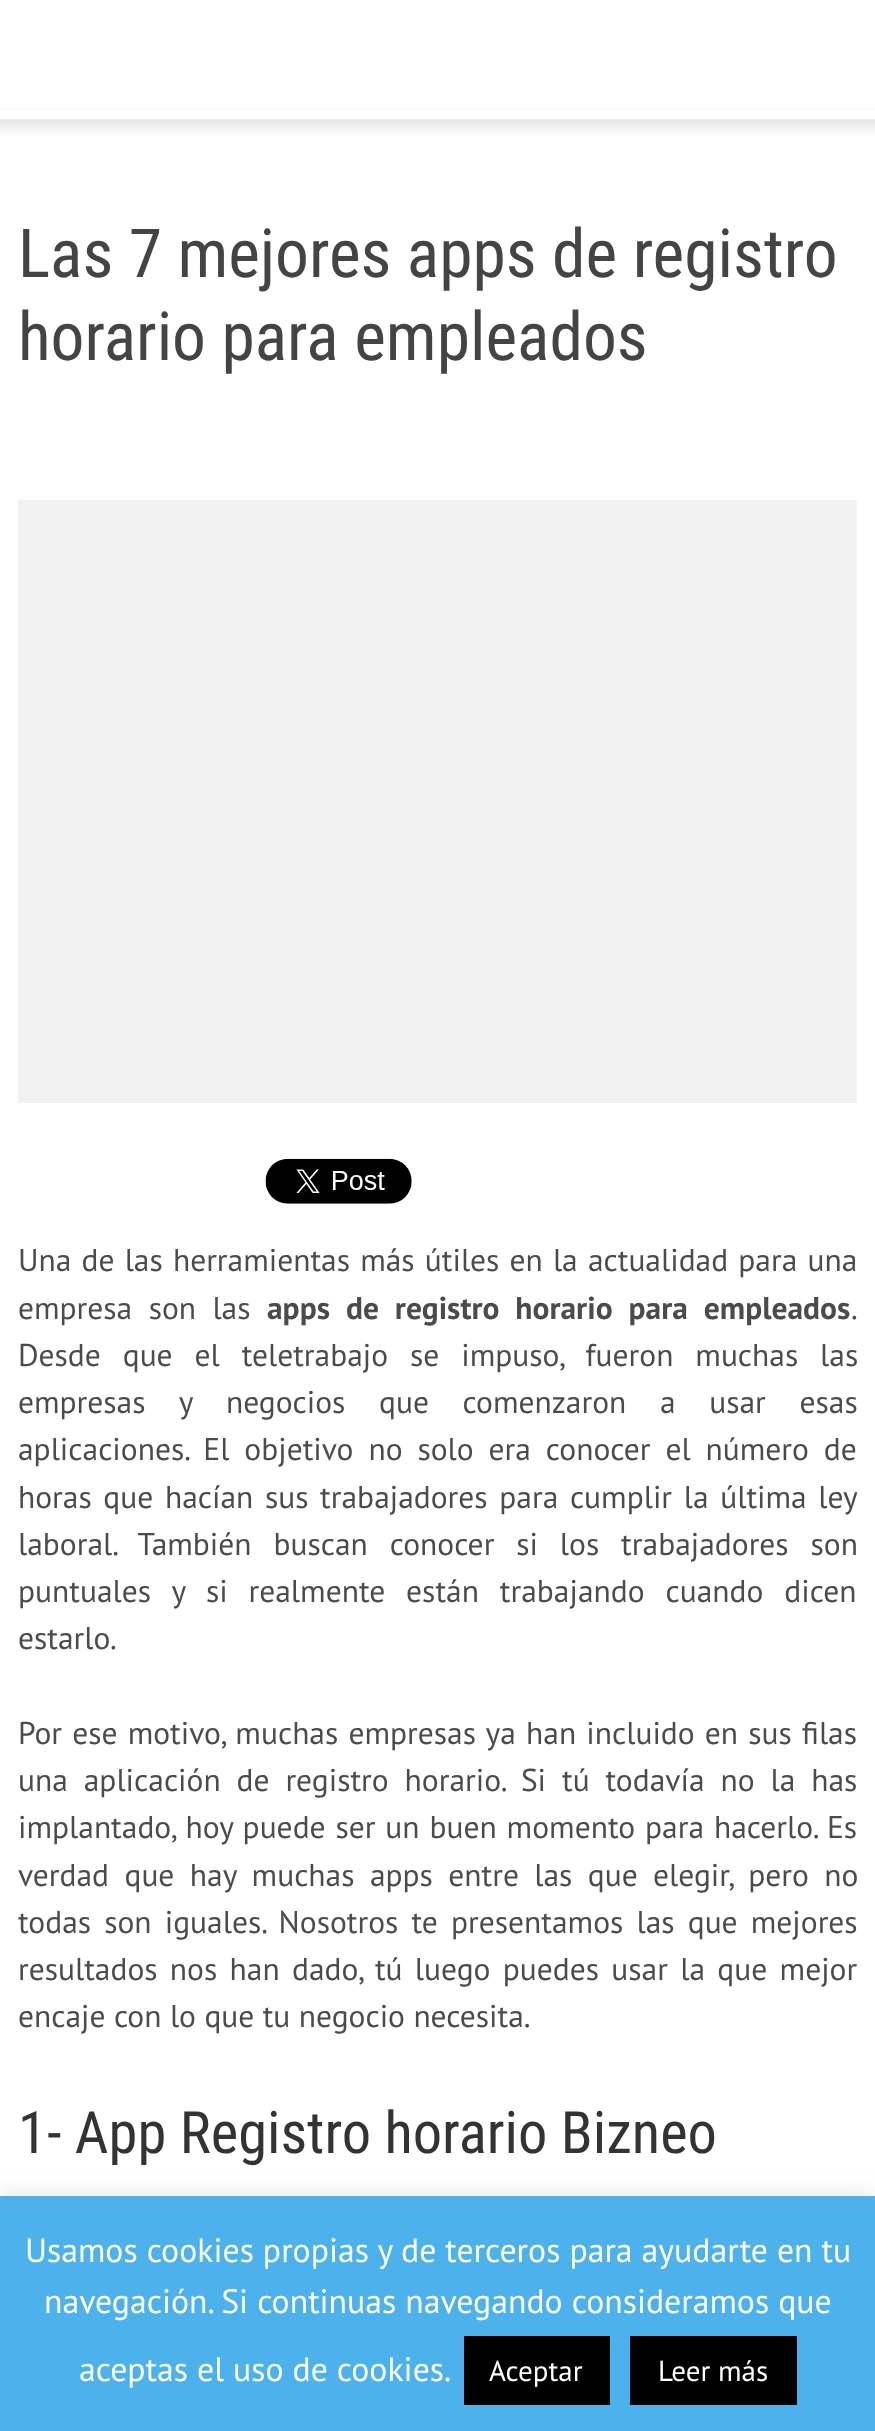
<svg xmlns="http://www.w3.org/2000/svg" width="875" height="2431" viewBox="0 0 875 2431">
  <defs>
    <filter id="blur1" x="-50%" y="-200%" width="200%" height="500%"><feGaussianBlur stdDeviation="11"/></filter>
  </defs>
  <rect width="100%" height="100%" fill="#ffffff"/>
  <rect x="0" y="107" width="875" height="3" fill="#fafafa"/>
  <image x="0" y="119" width="875" height="17" href="img1.png"/>
  <text x="18" y="277" font-family="Roboto Condensed" font-size="67.5" fill="#444444">Las 7 mejores apps de registro</text>
  <text x="18" y="360" font-family="Roboto Condensed" font-size="67.5" fill="#444444">horario para empleados</text>
  <rect x="18" y="500" width="839" height="603" fill="#f2f2f2"/>
  <image x="265" y="1158" width="147" height="46" href="img2.png"/>
  <text x="18" y="1271" word-spacing="1.75" font-family="PT Sans" font-size="31.5" fill="#4b4b4b">Una de las herramientas más útiles en la actualidad para una</text>
  <text x="18" y="1319" word-spacing="8" font-family="PT Sans" font-size="31.5" fill="#4b4b4b">empresa son las</text>
  <text x="267" y="1319" word-spacing="8" font-family="PT Sans" font-size="31.5" font-weight="bold" fill="#4b4b4b">apps de registro horario para empleados</text>
  <text x="851" y="1319" font-family="PT Sans" font-size="31.5" fill="#4b4b4b">.</text>
  <text x="18" y="1366" word-spacing="13.5" font-family="PT Sans" font-size="31.5" fill="#4b4b4b">Desde que el teletrabajo se impuso, fueron muchas las</text>
  <text x="18" y="1413" word-spacing="25.25" font-family="PT Sans" font-size="31.5" fill="#4b4b4b">empresas y negocios que comenzaron a usar esas</text>
  <text x="18" y="1460" word-spacing="6.5" font-family="PT Sans" font-size="31.5" fill="#4b4b4b">aplicaciones. El objetivo no solo era conocer el número de</text>
  <text x="18" y="1508" word-spacing="3.25" font-family="PT Sans" font-size="31.5" fill="#4b4b4b">horas que hacían sus trabajadores para cumplir la última ley</text>
  <text x="18" y="1555" word-spacing="13.5" font-family="PT Sans" font-size="31.5" fill="#4b4b4b">laboral. También buscan conocer si los trabajadores son</text>
  <text x="18" y="1602" word-spacing="12.5" font-family="PT Sans" font-size="31.5" fill="#4b4b4b">puntuales y si realmente están trabajando cuando dicen</text>
  <text x="18" y="1649" font-family="PT Sans" font-size="31.5" fill="#4b4b4b">estarlo.</text>
  <text x="18" y="1744" word-spacing="1.75" font-family="PT Sans" font-size="31.5" fill="#4b4b4b">Por ese motivo, muchas empresas ya han incluido en sus filas</text>
  <text x="18" y="1791" word-spacing="7.5" font-family="PT Sans" font-size="31.5" fill="#4b4b4b">una aplicación de registro horario. Si tú todavía no la has</text>
  <text x="18" y="1838" word-spacing="1.5" font-family="PT Sans" font-size="31.5" fill="#4b4b4b">implantado, hoy puede ser un buen momento para hacerlo. Es</text>
  <text x="18" y="1886" word-spacing="7" font-family="PT Sans" font-size="31.5" fill="#4b4b4b">verdad que hay muchas apps entre las que elegir, pero no</text>
  <text x="18" y="1933" word-spacing="4.75" font-family="PT Sans" font-size="31.5" fill="#4b4b4b">todas son iguales. Nosotros te presentamos las que mejores</text>
  <text x="18" y="1980" word-spacing="3.9" font-family="PT Sans" font-size="31.5" fill="#4b4b4b">resultados nos han dado, tú luego puedes usar la que mejor</text>
  <text x="18" y="2027" font-family="PT Sans" font-size="31.5" fill="#4b4b4b">encaje con lo que tu negocio necesita.</text>
  <text x="18" y="2153" font-family="Roboto Condensed" font-size="58.5" fill="#333333">1- App Registro horario Bizneo</text>
  <rect x="0" y="2194" width="875" height="236" fill="#acabab" fill-opacity="0.3" filter="url(#blur1)"/>
  <rect x="0" y="2196" width="875" height="235" fill="#4db2ec"/>
  <text x="25" y="2262" font-family="PT Sans" font-size="33.75" fill="#ffffff">Usamos cookies propias y de terceros para ayudarte en tu</text>
  <text x="44" y="2313" font-family="PT Sans" font-size="33.75" fill="#ffffff">navegación. Si continuas navegando consideramos que</text>
  <text x="79" y="2381" font-family="PT Sans" font-size="33.75" fill="#ffffff">aceptas el uso de cookies.</text>
  <rect x="464" y="2336" width="146" height="69" fill="#000000"/>
  <text x="489" y="2381" font-family="PT Sans" font-size="29" fill="#ffffff">Aceptar</text>
  <rect x="630" y="2336" width="167" height="69" fill="#000000"/>
  <text x="658" y="2381" font-family="PT Sans" font-size="29" fill="#ffffff">Leer más</text>
</svg>
